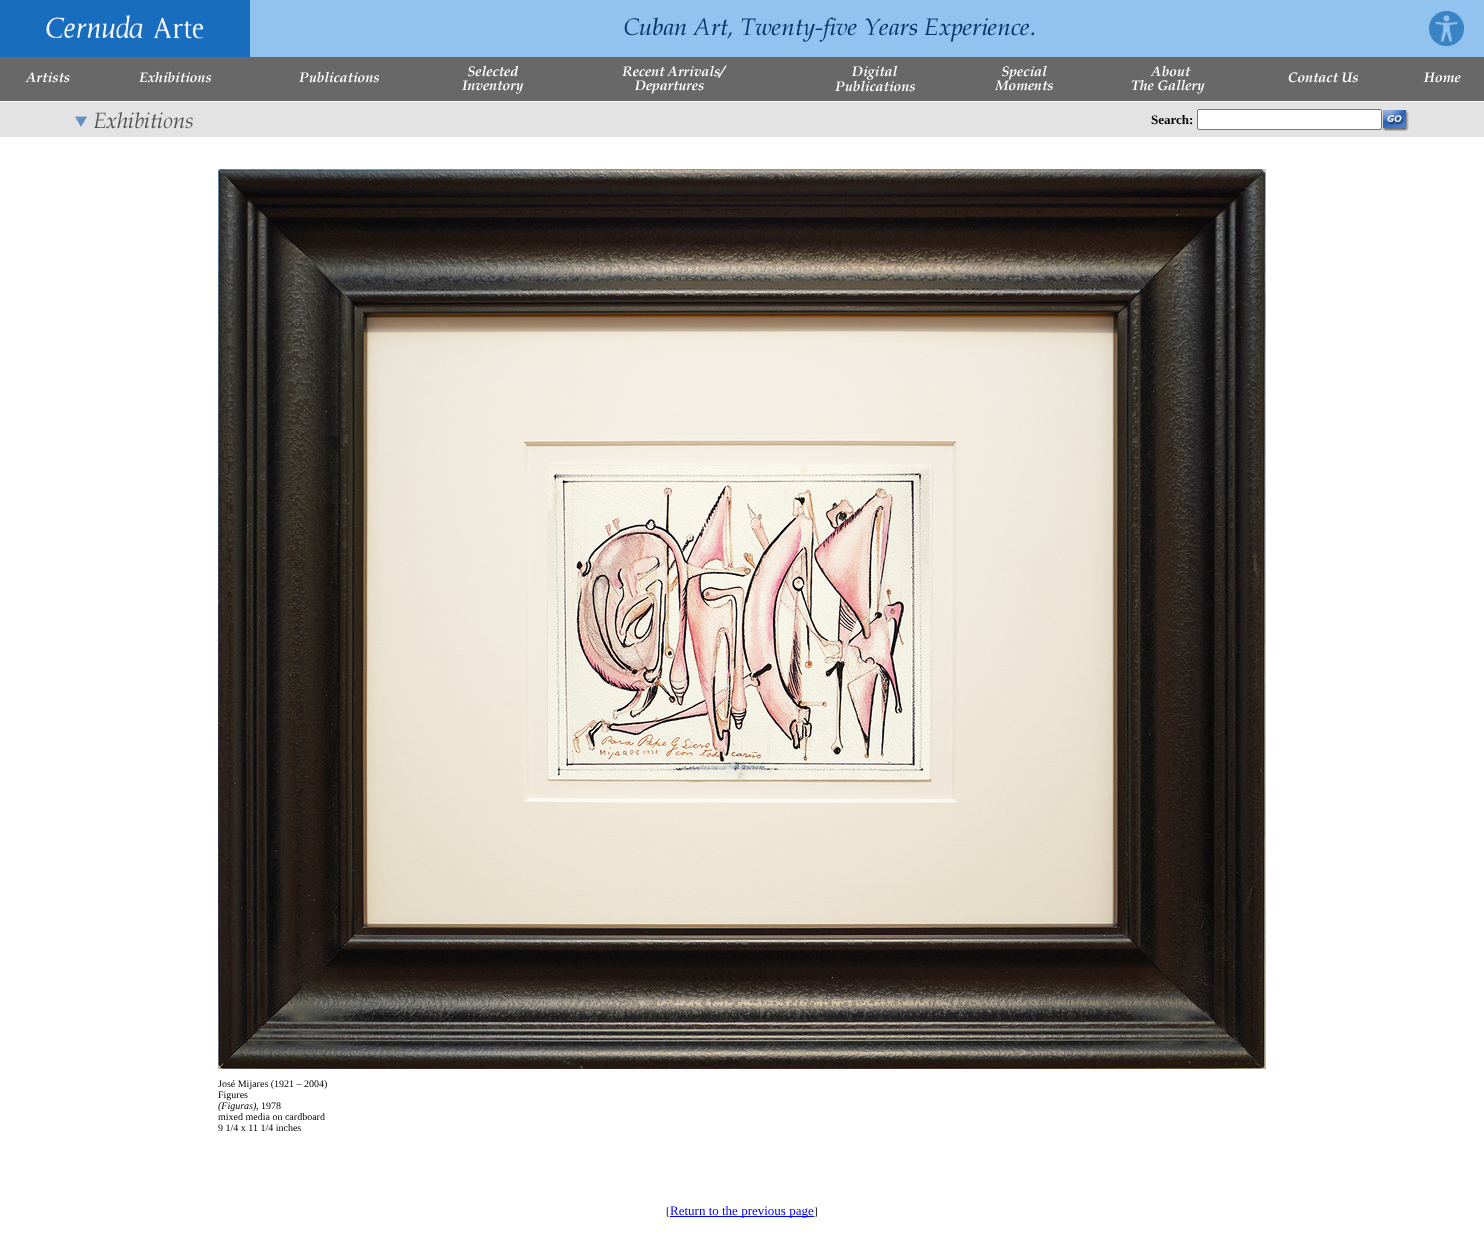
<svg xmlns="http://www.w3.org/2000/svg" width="1484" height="1239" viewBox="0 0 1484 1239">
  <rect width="100%" height="100%" fill="#ffffff"/>
  <rect x="250" y="0" width="1234" height="57" fill="#91c3ee"/>
  <image x="0" y="0" width="250" height="57" href="img1.png"/>
  <image x="624" y="17" width="410" height="25" href="img2.png"/>
  <image x="1429" y="11" width="35" height="35" href="img3.png"/>
  <rect x="0" y="57" width="1484" height="44" fill="#686868"/>
  <image x="25" y="72" width="45" height="11" href="img4.png"/>
  <image x="139" y="71" width="73" height="12" href="img5.png"/>
  <image x="299" y="71" width="80" height="12" href="img6.png"/>
  <image x="462" y="65" width="62" height="29" href="img7.png"/>
  <image x="622" y="65" width="105" height="29" href="img8.png"/>
  <image x="835" y="65" width="80" height="27" href="img9.png"/>
  <image x="995" y="65" width="58" height="26" href="img10.png"/>
  <image x="1131" y="65" width="74" height="29" href="img11.png"/>
  <image x="1288" y="72" width="70" height="11" href="img12.png"/>
  <image x="1423" y="72" width="38" height="11" href="img13.png"/>
  <rect x="0" y="102" width="1484" height="35" fill="#e3e3e3"/>
  <image x="75" y="112" width="118" height="17" href="img14.png"/>
  <text x="1151" y="124" font-family="Liberation Serif" font-size="13" font-weight="bold" fill="#000000">Search:</text>
  <rect x="1197.5" y="109.5" width="184" height="20" rx="1.5" fill="#ffffff" stroke="#767676"/>
  <image x="1382" y="110" width="27" height="21" href="img15.png"/>
  <image x="218" y="169" width="1048" height="900" href="img16.png"/>
  <text x="218" y="1087" font-family="Liberation Serif" font-size="10" fill="#000000">José Mijares (1921 – 2004)</text>
  <text x="218" y="1098" font-family="Liberation Serif" font-size="10" fill="#000000">Figures</text>
  <text x="218" y="1109" font-family="Liberation Serif" font-size="10" font-style="italic" fill="#000000">(Figuras)</text>
  <text x="256" y="1109" font-family="Liberation Serif" font-size="10" fill="#000000">, 1978</text>
  <text x="218" y="1120" font-family="Liberation Serif" font-size="10" fill="#000000">mixed media on cardboard</text>
  <text x="218" y="1131" font-family="Liberation Serif" font-size="10" fill="#000000">9 1/4 x 11 1/4 inches</text>
  <text x="666" y="1215" font-family="Liberation Serif" font-size="11" fill="#000000">[</text>
  <rect x="670" y="1216" width="144" height="1" fill="#0000ff"/>
  <text x="670" y="1215" font-family="Liberation Serif" font-size="13" fill="#0000ff">Return to the previous page</text>
  <text x="814" y="1215" font-family="Liberation Serif" font-size="11" fill="#000000">]</text>
</svg>
